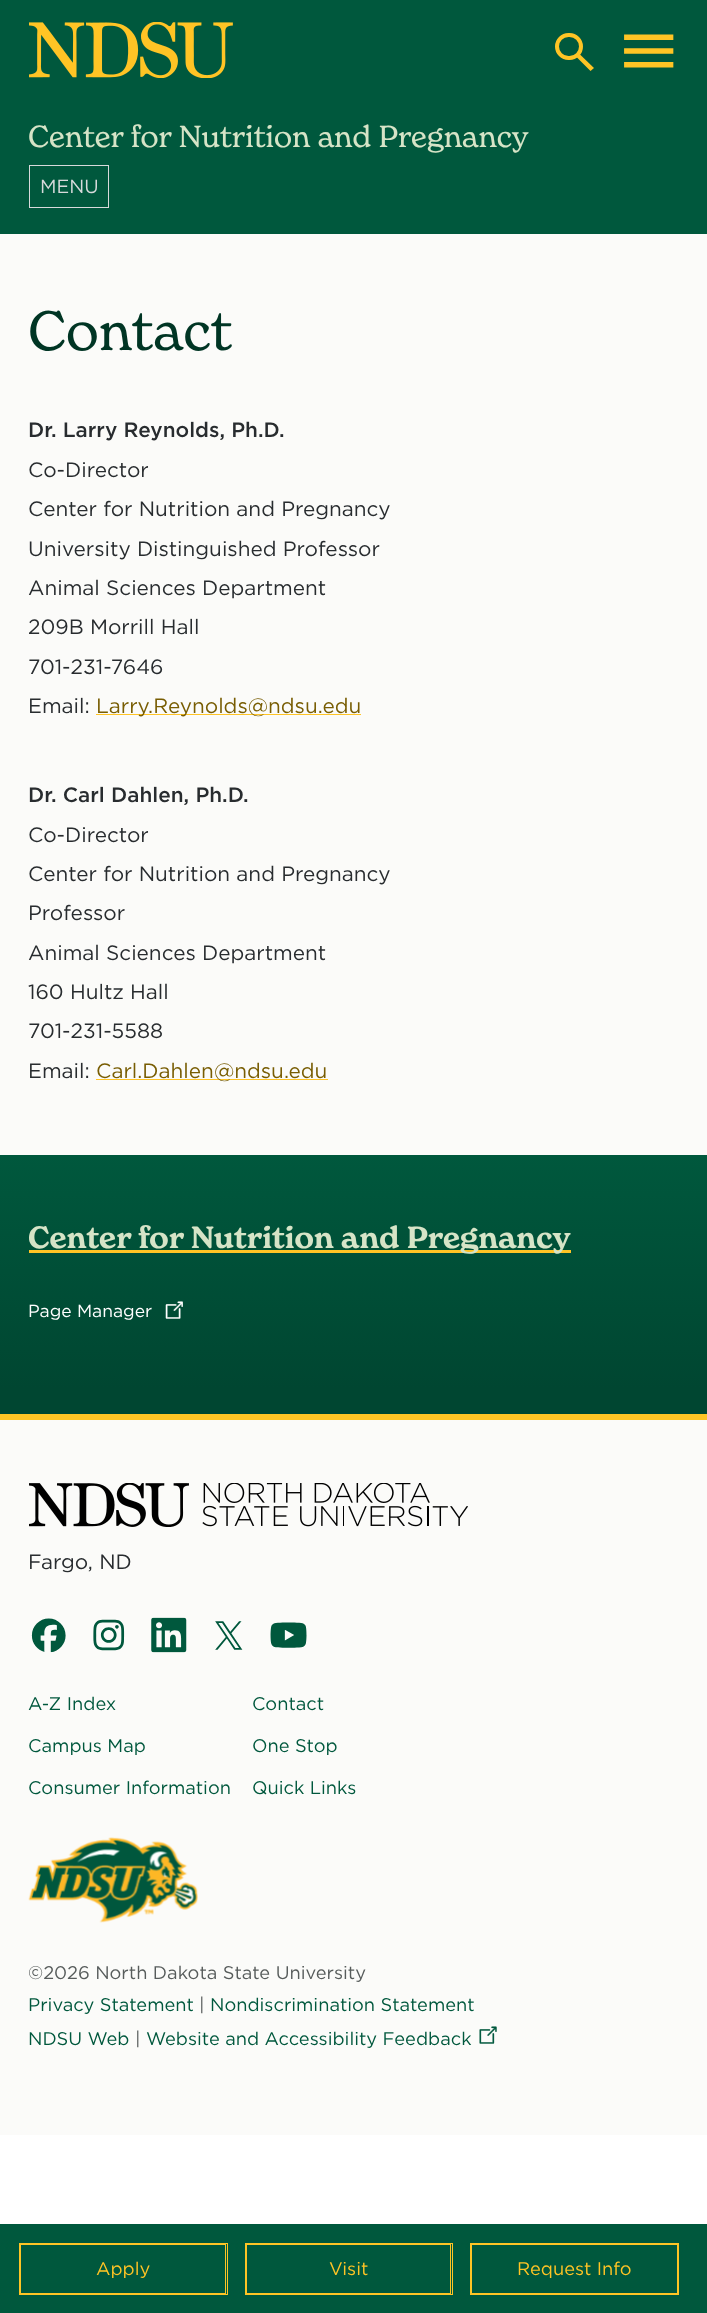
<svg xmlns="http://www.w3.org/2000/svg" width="707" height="2313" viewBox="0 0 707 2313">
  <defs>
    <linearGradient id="g1" gradientUnits="userSpaceOnUse" x1="354" y1="1155" x2="354" y2="1414"><stop offset="0" stop-color="#00583d"/><stop offset="0.9" stop-color="#004631"/></linearGradient>
  </defs>
  <rect width="100%" height="100%" fill="#ffffff"/>
  <rect x="0" y="0" width="707" height="234" fill="#00583d"/>
  <text x="28" y="147" font-family="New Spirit" font-size="30" fill="#d6e4c7">Center for Nutrition and Pregnancy</text>
  <rect x="29.5" y="165.5" width="79" height="42" fill="none" stroke="#d7dadb"/>
  <text x="40" y="193" font-family="Gotham" font-size="19" fill="#d7dadb">MENU</text>
  <rect x="0" y="234" width="707" height="921" fill="#fbfbf9"/>
  <text x="28" y="350" font-family="New Spirit" font-size="54.5" fill="#003524">Contact</text>
  <text x="28" y="437" font-family="Gotham" font-size="20.75" font-weight="500" fill="#282c2f">Dr. Larry Reynolds, Ph.D.</text>
  <text x="28" y="477" font-family="Gotham" font-size="20.75" fill="#282c2f">Co-Director</text>
  <text x="28" y="516" font-family="Gotham" font-size="20.75" fill="#282c2f">Center for Nutrition and Pregnancy</text>
  <text x="28" y="556" font-family="Gotham" font-size="20.75" fill="#282c2f">University Distinguished Professor</text>
  <text x="28" y="595" font-family="Gotham" font-size="20.75" fill="#282c2f">Animal Sciences Department</text>
  <text x="28" y="634" font-family="Gotham" font-size="20.75" fill="#282c2f">209B Morrill Hall</text>
  <text x="28" y="674" font-family="Gotham" font-size="20.75" fill="#282c2f">701-231-7646</text>
  <text x="28" y="713" font-family="Gotham" font-size="20.75" fill="#282c2f">Email:</text>
  <rect x="96" y="714" width="265" height="1" fill="#ffc425"/>
  <text x="96" y="713" font-family="Gotham" font-size="20.75" fill="#785d03">Larry.Reynolds@ndsu.edu</text>
  <text x="28" y="802" font-family="Gotham" font-size="20.75" font-weight="500" fill="#282c2f">Dr. Carl Dahlen, Ph.D.</text>
  <text x="28" y="842" font-family="Gotham" font-size="20.75" fill="#282c2f">Co-Director</text>
  <text x="28" y="881" font-family="Gotham" font-size="20.75" fill="#282c2f">Center for Nutrition and Pregnancy</text>
  <text x="28" y="920" font-family="Gotham" font-size="20.75" fill="#282c2f">Professor</text>
  <text x="28" y="960" font-family="Gotham" font-size="20.75" fill="#282c2f">Animal Sciences Department</text>
  <text x="28" y="999" font-family="Gotham" font-size="20.75" fill="#282c2f">160 Hultz Hall</text>
  <text x="28" y="1038" font-family="Gotham" font-size="20.75" fill="#282c2f">701-231-5588</text>
  <text x="28" y="1078" font-family="Gotham" font-size="20.75" fill="#282c2f">Email:</text>
  <rect x="96" y="1079" width="232" height="1" fill="#ffc425"/>
  <text x="96" y="1078" font-family="Gotham" font-size="20.75" fill="#785d03">Carl.Dahlen@ndsu.edu</text>
  <rect x="0" y="1155" width="707" height="259" fill="url(#g1)"/>
  <rect x="29" y="1250" width="542" height="3" fill="#ffc425"/>
  <text x="28" y="1248" font-family="New Spirit" font-size="30" font-weight="600" fill="#d6e4c7">Center for Nutrition and Pregnancy</text>
  <text x="28" y="1317" font-family="Gotham" font-size="17.5" fill="#ffffff">Page Manager</text>
  <image x="165" y="1301" width="18" height="18" href="img1.png"/>
  <rect x="0" y="1420" width="707" height="715" fill="#fbfbf9"/>
  <rect x="0" y="1414" width="707" height="6" fill="#ffc425"/>
  <image x="29" y="1483" width="439" height="44" href="img2.png"/>
  <text x="28" y="1569" font-family="Gotham" font-size="20.75" fill="#282c2f">Fargo, ND</text>
  <image x="31" y="1618" width="35" height="35" href="img3.png"/>
  <image x="93" y="1619" width="32" height="32" href="img4.png"/>
  <image x="151" y="1617" width="36" height="36" href="img5.png"/>
  <image x="215" y="1621" width="28" height="29" href="img6.png"/>
  <image x="270" y="1622" width="37" height="26" href="img7.png"/>
  <text x="28" y="1710" font-family="Gotham" font-size="18.25" fill="#00583d">A-Z Index</text>
  <text x="252" y="1710" font-family="Gotham" font-size="18.25" fill="#00583d">Contact</text>
  <text x="28" y="1752" font-family="Gotham" font-size="18.25" fill="#00583d">Campus Map</text>
  <text x="252" y="1752" font-family="Gotham" font-size="18.25" fill="#00583d">One Stop</text>
  <text x="28" y="1794" font-family="Gotham" font-size="18.25" fill="#00583d">Consumer Information</text>
  <text x="252" y="1794" font-family="Gotham" font-size="18.25" fill="#00583d">Quick Links</text>
  <image x="28" y="1837" width="170" height="86" href="img8.png"/>
  <text x="28" y="1979" font-family="Gotham" font-size="18.25" fill="#575c5b">©2026 North Dakota State University</text>
  <text x="28" y="2011" font-family="Gotham" font-size="18.25" fill="#00583d">Privacy Statement</text>
  <text x="199" y="2011" font-family="Gotham" font-size="18.25" fill="#575c5b">|</text>
  <text x="210" y="2011" font-family="Gotham" font-size="18.25" fill="#00583d">Nondiscrimination Statement</text>
  <text x="28" y="2045" font-family="Gotham" font-size="18.25" fill="#00583d">NDSU Web</text>
  <text x="135" y="2045" font-family="Gotham" font-size="18.25" fill="#575c5b">|</text>
  <text x="146" y="2045" font-family="Gotham" font-size="18.25" fill="#00583d">Website and Accessibility Feedback</text>
  <image x="479" y="2026" width="18" height="18" href="img9.png"/>
  <image x="29" y="22" width="204" height="56" href="img10.png"/>
  <path d="M576.5 57L579.5 54L594 68L590.5 71Z" fill="#ffc425"/>
  <rect x="557" y="35" width="24" height="23" rx="11.5" fill="none" stroke="#ffc425" stroke-width="4"/>
  <image x="624" y="34" width="50" height="34" href="img11.png"/>
  <rect x="0" y="2224" width="707" height="89" fill="#00583d"/>
  <rect x="20.5" y="2244.5" width="205" height="49" fill="none" stroke="#ffc425"/>
  <rect x="19.5" y="2243.5" width="208" height="51" fill="none" stroke="#ffc425"/>
  <text x="96" y="2275" font-family="Gotham" font-size="18.25" fill="#ffc425">Apply</text>
  <rect x="246.5" y="2244.5" width="204" height="49" fill="none" stroke="#ffc425"/>
  <rect x="245.5" y="2243.5" width="207" height="51" fill="none" stroke="#ffc425"/>
  <text x="329" y="2275" font-family="Gotham" font-size="18.25" fill="#ffc425">Visit</text>
  <rect x="471.5" y="2244.5" width="206" height="49" fill="none" stroke="#ffc425"/>
  <rect x="470.5" y="2243.5" width="208" height="51" fill="none" stroke="#ffc425"/>
  <text x="517" y="2275" font-family="Gotham" font-size="18.25" fill="#ffc425">Request Info</text>
</svg>
